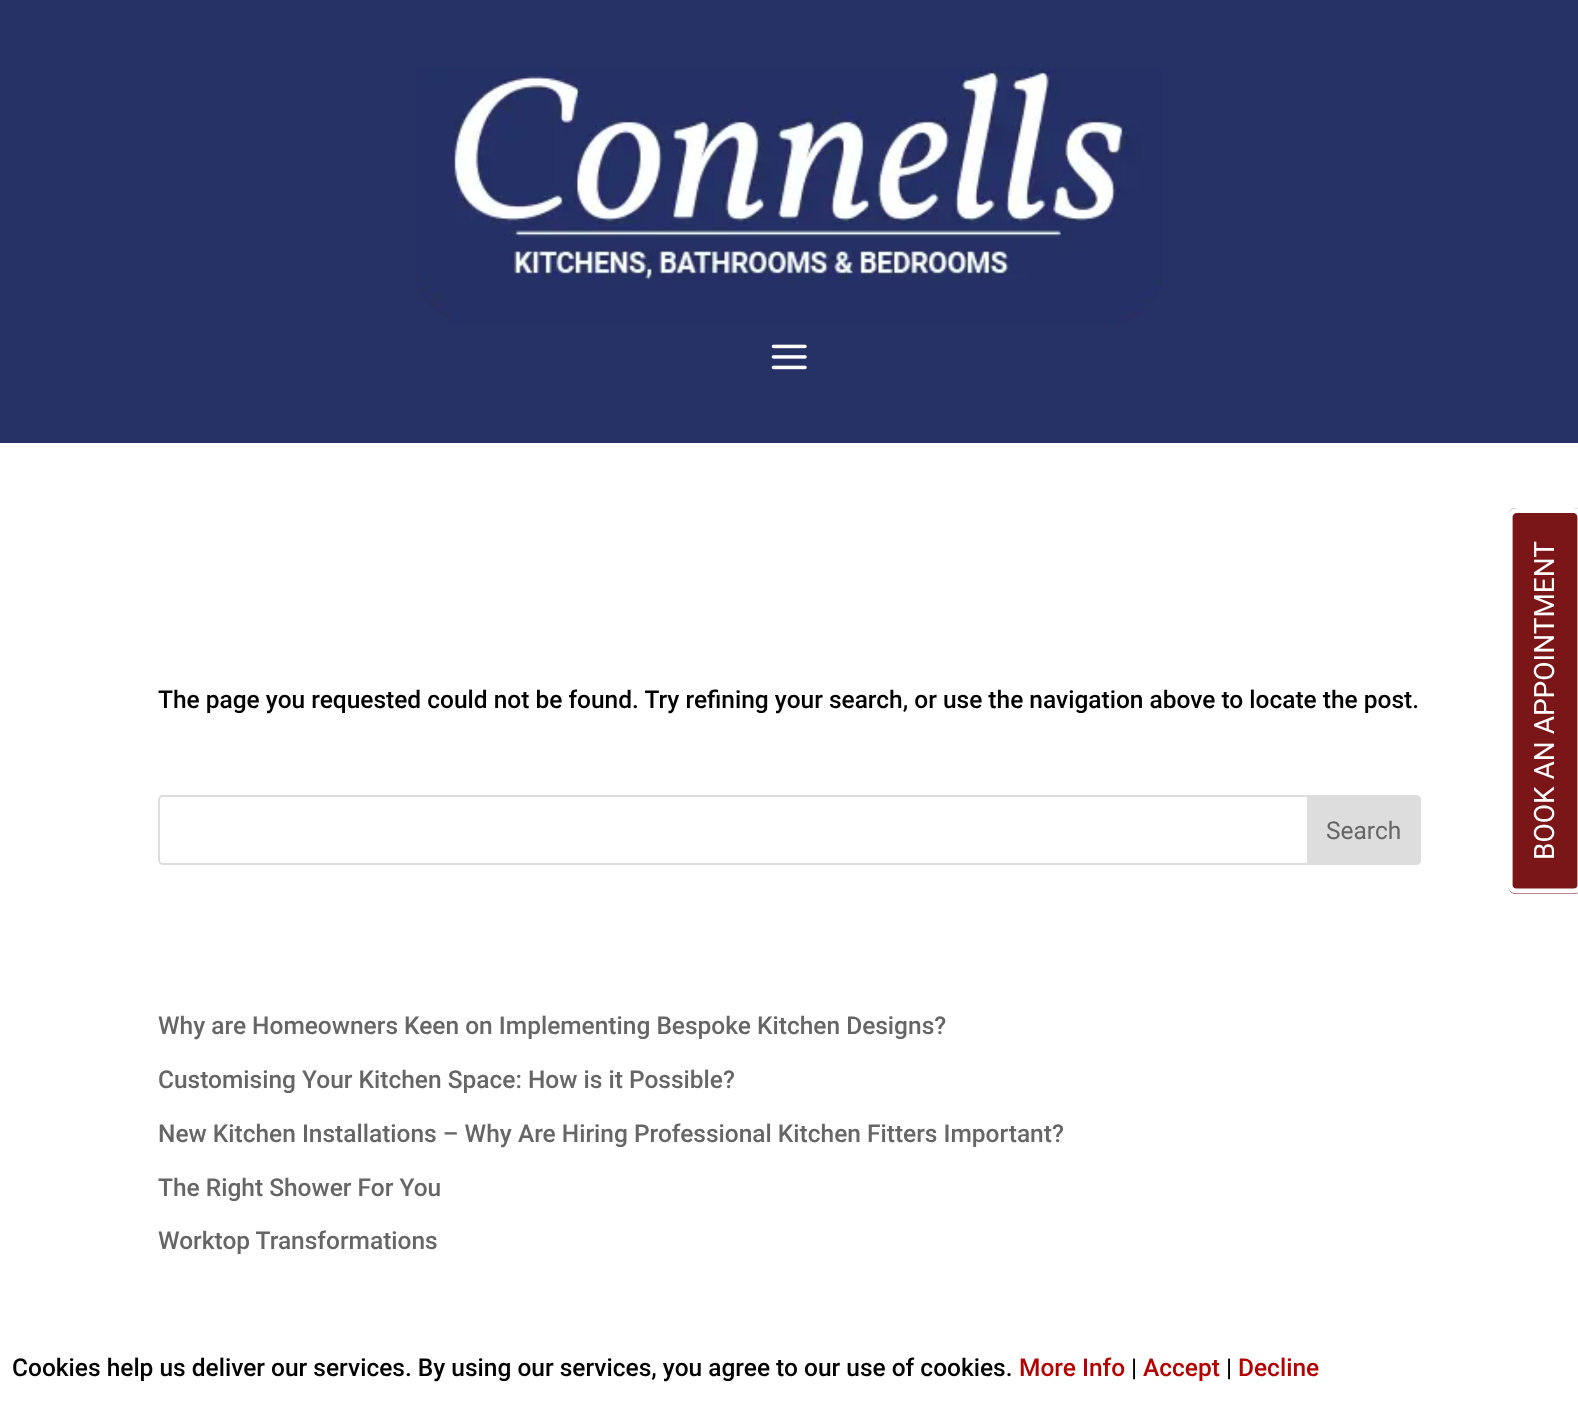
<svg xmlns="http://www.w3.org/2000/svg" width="1578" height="1401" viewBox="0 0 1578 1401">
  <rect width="100%" height="100%" fill="#ffffff"/>
  <rect x="0" y="0" width="1578" height="443" fill="#263166"/>
  <image x="417" y="67" width="745" height="258" href="img1.png"/>
  <image x="771" y="344" width="36" height="26" href="img2.png"/>
  <text x="158" y="708" font-family="Roboto" font-size="24.5" font-weight="500" fill="#000000">The page you requested could not be found. Try refining your search, or use the navigation above to locate the post.</text>
  <rect x="159" y="796" width="1261" height="68" rx="4" fill="none" stroke="#dddddd" stroke-width="2"/>
  <path d="M1308 796H1416C1418 796 1420 798 1420 800V860C1420 862 1418 864 1416 864H1308Z" fill="#dddddd" stroke="#dddddd" stroke-width="2"/>
  <text x="1326" y="839" font-family="Roboto" font-size="24.5" fill="#666666">Search</text>
  <text x="158" y="1034" font-family="Roboto" font-size="24.5" font-weight="500" fill="#666666">Why are Homeowners Keen on Implementing Bespoke Kitchen Designs?</text>
  <text x="158" y="1088" font-family="Roboto" font-size="24.5" font-weight="500" fill="#666666">Customising Your Kitchen Space: How is it Possible?</text>
  <text x="158" y="1142" font-family="Roboto" font-size="24.5" font-weight="500" fill="#666666">New Kitchen Installations – Why Are Hiring Professional Kitchen Fitters Important?</text>
  <text x="158" y="1196" font-family="Roboto" font-size="24.5" font-weight="500" fill="#666666">The Right Shower For You</text>
  <text x="158" y="1249" font-family="Roboto" font-size="24.5" font-weight="500" fill="#666666">Worktop Transformations</text>
  <path d="M1508 885V517C1508 512 1511 508 1516 508H1574C1578 508 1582 512 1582 517V885C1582 890 1578 894 1574 894H1516C1511 894 1508 890 1508 885Z" fill="#7a1518"/>
  <path d="M1510 885V517C1510 513.5 1513 510.5 1516.5 510.5H1573.5C1577 510.5 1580 513.5 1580 517V885C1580 888.5 1577 891 1573.5 891H1516.5C1513 891 1510 888.5 1510 885Z" fill="none" stroke="#ffffff" stroke-width="5.2"/>
  <text x="1554" y="860" transform="rotate(-90 1554 860)" font-family="Roboto" font-size="28" fill="#ffffff">BOOK AN APPOINTMENT</text>
  <text x="12" y="1376" font-family="Roboto" font-size="24.5" font-weight="500" fill="#000000">Cookies help us deliver our services. By using our services, you agree to our use of cookies.</text>
  <text x="1019" y="1376" font-family="Roboto" font-size="24.5" font-weight="500" fill="#b30000">More Info</text>
  <text x="1131" y="1376" font-family="Roboto" font-size="24.5" font-weight="500" fill="#000000">|</text>
  <text x="1143" y="1376" font-family="Roboto" font-size="24.5" font-weight="500" fill="#b30000">Accept</text>
  <text x="1226" y="1376" font-family="Roboto" font-size="24.5" font-weight="500" fill="#000000">|</text>
  <text x="1238" y="1376" font-family="Roboto" font-size="24.5" font-weight="500" fill="#b30000">Decline</text>
</svg>
